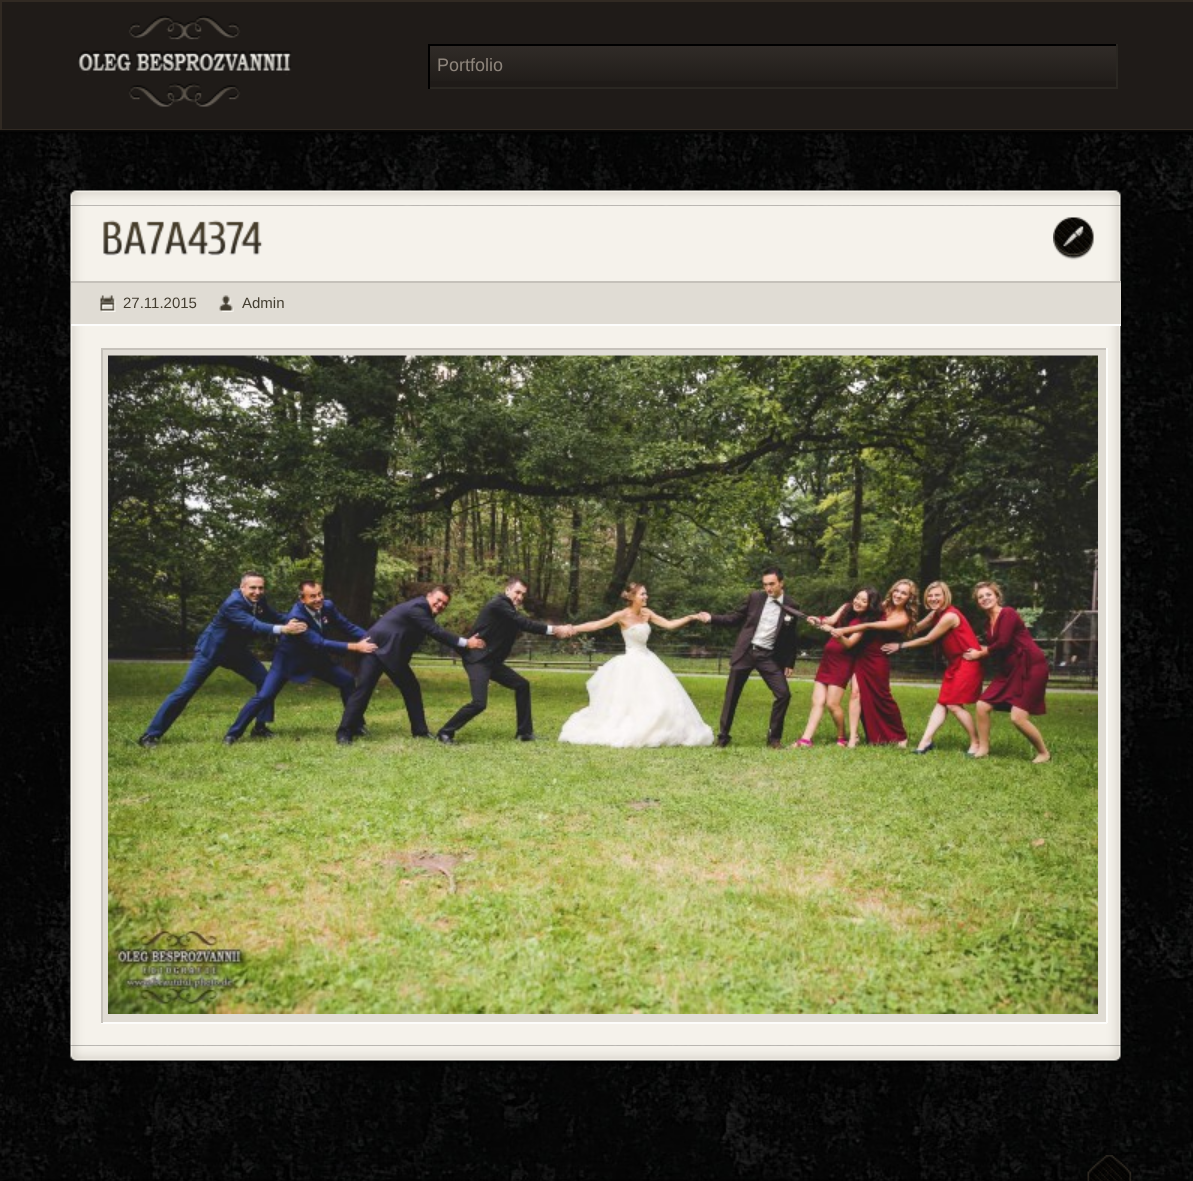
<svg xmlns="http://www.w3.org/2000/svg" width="1193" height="1181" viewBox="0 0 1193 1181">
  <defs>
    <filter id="blur1" x="-50%" y="-200%" width="200%" height="500%"><feGaussianBlur stdDeviation="1.5"/></filter>
    <linearGradient id="g1" gradientUnits="userSpaceOnUse" x1="773" y1="45" x2="773" y2="87"><stop offset="0" stop-color="#312c28"/><stop offset="1" stop-color="#1f1b18"/></linearGradient>
  </defs>
  <rect width="100%" height="100%" fill="#ffffff"/>
  <image x="0" y="132" width="1193" height="1049" href="img1.png"/>
  <rect x="0" y="2" width="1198" height="132" fill="#000000" fill-opacity="0.6" filter="url(#blur1)"/>
  <rect x="0" y="0" width="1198" height="132" fill="#000000" fill-opacity="0.3" filter="url(#blur1)"/>
  <rect x="0" y="2" width="1193" height="130" fill="#1f1b18"/>
  <rect x="1" y="1" width="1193" height="129" fill="none" stroke="#312a23" stroke-width="2"/>
  <path d="M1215 132H0V130H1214Z" fill="#030302" fill-opacity="0.8"/>
  <image x="78" y="15" width="214" height="92" href="img2.png"/>
  <rect x="430" y="46" width="686" height="35" fill="url(#g1)"/>
  <rect x="428" y="44" width="690" height="2" fill="#000000"/>
  <rect x="1116" y="44" width="2" height="45" fill="#2a2722"/>
  <rect x="428" y="87" width="690" height="2" fill="#2a2722"/>
  <rect x="428" y="44" width="2" height="45" fill="#000000"/>
  <text x="437" y="71" font-family="Liberation Sans" font-size="18" fill="#8e857c">Portfolio</text>
  <image x="70" y="189" width="1051" height="17" href="img3.png"/>
  <image x="70" y="1045" width="1052" height="22" href="img10.png"/>
  <image x="69" y="205" width="1054" height="841" href="img4.png"/>
  <image x="103" y="220" width="160" height="37" href="img5.png"/>
  <image x="1053" y="217" width="41" height="43" href="img6.png"/>
  <rect x="71" y="283" width="1050" height="41" fill="#e0dcd4"/>
  <rect x="71" y="281" width="1050" height="2" fill="#c5c1ba"/>
  <rect x="71" y="324" width="1050" height="2" fill="#fdfdfc"/>
  <image x="100" y="295" width="16" height="17" href="img7.png"/>
  <text x="123" y="308" font-family="Liberation Sans" font-size="15" fill="#433d30">27.11.2015</text>
  <image x="219" y="295" width="15" height="17" href="img8.png"/>
  <text x="242" y="308" font-family="Liberation Sans" font-size="15" fill="#433d30">Admin</text>
  <rect x="103" y="350" width="1003" height="672" fill="#e0dcd4"/>
  <rect x="101" y="348" width="1006" height="2" fill="#c6c2bb"/>
  <rect x="1106" y="348" width="2" height="675" fill="#fdfdfb"/>
  <rect x="101" y="1022" width="1006" height="2" fill="#fdfdfb"/>
  <rect x="101" y="348" width="2" height="675" fill="#c6c2bb"/>
  <image x="108" y="355" width="990" height="659" href="img9.png"/>
  <image x="26" y="1179" width="1115" height="2" href="img11.png"/>
  <image x="1087" y="1155" width="46" height="26" href="img12.png"/>
</svg>
